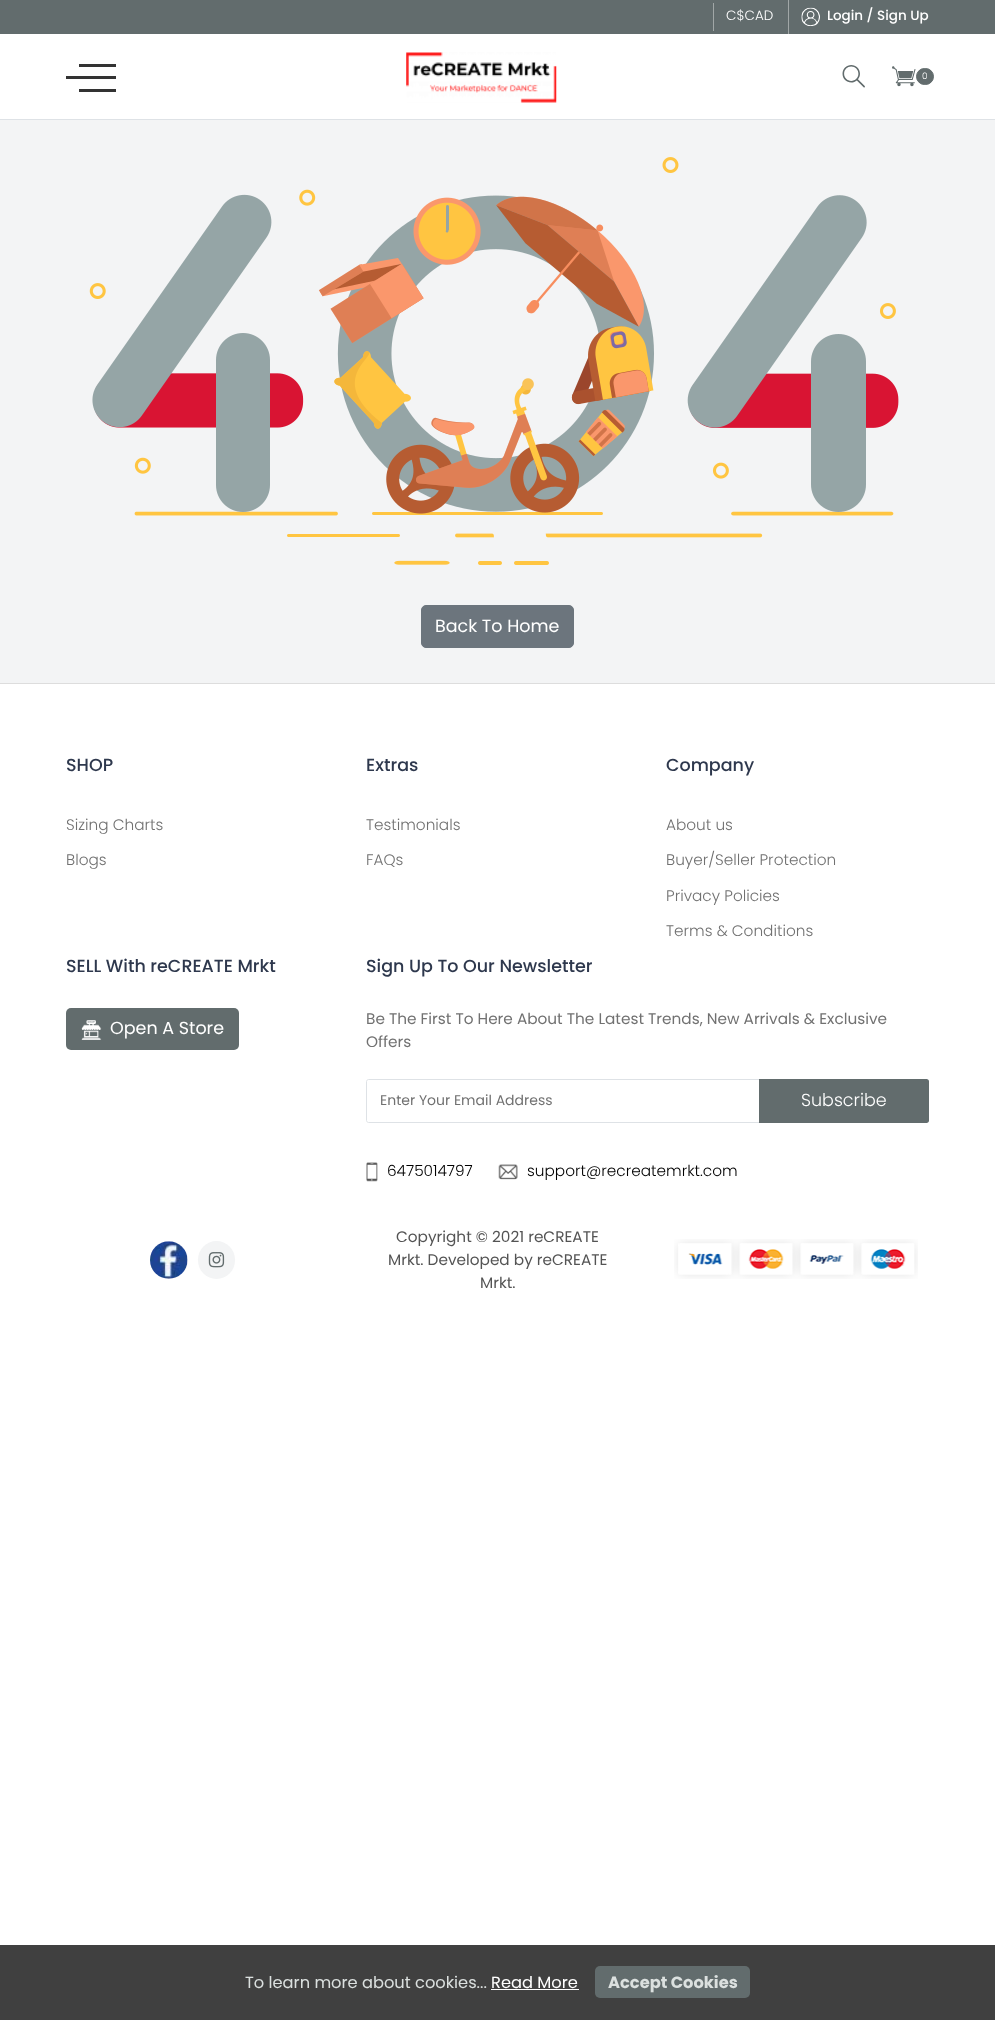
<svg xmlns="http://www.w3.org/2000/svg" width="995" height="2020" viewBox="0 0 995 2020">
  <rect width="100%" height="100%" fill="#ffffff"/>
  <rect x="0" y="119" width="995" height="1" fill="#dee2e6"/>
  <rect x="0" y="0" width="995" height="34" fill="#626c6d"/>
  <rect x="713" y="3" width="1" height="28" fill="#a1a7a7"/>
  <text x="726" y="20" font-family="Poppins" font-size="13.5" font-weight="300" fill="#ffffff">C$CAD</text>
  <rect x="788" y="0" width="1" height="34" fill="#a1a7a7"/>
  <image x="801" y="7" width="19" height="19" href="img1.png"/>
  <text x="827" y="20" font-family="Poppins" font-size="13.5" font-weight="500" fill="#ffffff">Login / Sign Up</text>
  <rect x="66" y="76" width="50" height="3" fill="#333333"/>
  <rect x="79" y="64" width="37" height="3" fill="#333333"/>
  <rect x="79" y="89" width="37" height="3" fill="#333333"/>
  <image x="406" y="52" width="151" height="51" href="img2.png"/>
  <image x="842" y="65" width="23" height="23" href="img3.png"/>
  <image x="892" y="66" width="24" height="21" href="img4.png"/>
  <rect x="916.5" y="68.5" width="17" height="16" rx="8" fill="#626c6d" stroke="#626c6d"/>
  <text x="922" y="79" font-family="Poppins" font-size="9" font-weight="300" fill="#ffffff">0</text>
  <rect x="0" y="120" width="995" height="563" fill="#f3f4f5"/>
  <image x="89" y="157" width="810" height="408" href="img5.png"/>
  <rect x="421.5" y="605.5" width="152" height="42" rx="4.5" fill="#6c757d" stroke="#6c757d"/>
  <text x="435" y="632" font-family="Poppins" font-size="17.5" fill="#ffffff">Back To Home</text>
  <rect x="0" y="683" width="995" height="1" fill="#dddddd"/>
  <text x="66" y="771" font-family="Poppins" font-size="17.5" font-weight="500" fill="#2e384d">SHOP</text>
  <text x="66" y="830" font-family="Poppins" font-size="15.3" font-weight="300" fill="#717171">Sizing Charts</text>
  <text x="66" y="865" font-family="Poppins" font-size="15.3" font-weight="300" fill="#717171">Blogs</text>
  <text x="366" y="771" font-family="Poppins" font-size="17.5" font-weight="500" fill="#2e384d">Extras</text>
  <text x="366" y="830" font-family="Poppins" font-size="15.3" font-weight="300" fill="#717171">Testimonials</text>
  <text x="366" y="865" font-family="Poppins" font-size="15.3" font-weight="300" fill="#717171">FAQs</text>
  <text x="666" y="771" font-family="Poppins" font-size="17.5" font-weight="500" fill="#2e384d">Company</text>
  <text x="666" y="830" font-family="Poppins" font-size="15.3" font-weight="300" fill="#717171">About us</text>
  <text x="666" y="865" font-family="Poppins" font-size="15.3" font-weight="300" fill="#717171">Buyer/Seller Protection</text>
  <text x="666" y="901" font-family="Poppins" font-size="15.3" font-weight="300" fill="#717171">Privacy Policies</text>
  <text x="666" y="936" font-family="Poppins" font-size="15.3" font-weight="300" fill="#717171">Terms &amp; Conditions</text>
  <text x="66" y="972" font-family="Poppins" font-size="17.5" font-weight="500" fill="#2e384d">SELL With reCREATE Mrkt</text>
  <rect x="66" y="1008" width="173" height="42" rx="5" fill="#626c6d"/>
  <image x="81" y="1020" width="21" height="20" href="img6.png"/>
  <text x="110" y="1034" font-family="Poppins" font-size="17.5" fill="#ffffff">Open A Store</text>
  <text x="366" y="972" font-family="Poppins" font-size="17.5" font-weight="500" fill="#2e384d">Sign Up To Our Newsletter</text>
  <text x="366" y="1024" font-family="Poppins" font-size="15.3" fill="#717171">Be The First To Here About The Latest Trends, New Arrivals &amp; Exclusive</text>
  <text x="366" y="1047" font-family="Poppins" font-size="15.3" fill="#717171">Offers</text>
  <path d="M368.5 1079.5H762.5V1120.5C762.5 1121.5 761.5 1122.5 760.5 1122.5H368.5C367.5 1122.5 366.5 1121.5 366.5 1120.5V1081.5C366.5 1080.5 367.5 1079.5 368.5 1079.5Z" fill="none" stroke="#dee2e6"/>
  <text x="380" y="1105" font-family="Poppins" font-size="14" fill="#717171">Enter Your Email Address</text>
  <path d="M759 1079H926.5C928 1079 929 1080 929 1081.5V1120.5C929 1122 928 1123 926.5 1123H759Z" fill="#626c6d"/>
  <text x="801" y="1106" font-family="Poppins" font-size="17.5" font-weight="300" fill="#ffffff">Subscribe</text>
  <image x="366" y="1162" width="12" height="20" href="img7.png"/>
  <text x="387" y="1176" font-family="Poppins" font-size="15.3" font-weight="300" fill="#000000">6475014797</text>
  <image x="498" y="1164" width="20" height="16" href="img8.png"/>
  <text x="527" y="1176" font-family="Poppins" font-size="15.3" font-weight="300" fill="#000000">support@recreatemrkt.com</text>
  <circle cx="169" cy="1260" r="19" fill="#f3f4f5"/>
  <image x="150" y="1241" width="38" height="38" href="img9.png"/>
  <rect x="198" y="1241" width="37" height="38" rx="18.5" fill="#f3f4f5"/>
  <image x="208" y="1252" width="17" height="16" href="img10.png"/>
  <text x="396" y="1242" font-family="Poppins" font-size="15.3" fill="#545454">Copyright © 2021 reCREATE</text>
  <text x="388" y="1265" font-family="Poppins" font-size="15.3" fill="#545454">Mrkt. Developed by reCREATE</text>
  <text x="480" y="1288" font-family="Poppins" font-size="15.3" fill="#545454">Mrkt.</text>
  <image x="674" y="1239" width="244" height="40" href="img11.png"/>
  <rect x="0" y="1945" width="995" height="75" fill="#404040"/>
  <text x="245" y="1988" font-family="Poppins" font-size="16.25" fill="#dbe0df">To learn more about cookies...</text>
  <text x="491" y="1988" font-family="Poppins" font-size="16.25" fill="#ffffff">Read More</text>
  <rect x="491" y="1989" width="88" height="1" fill="#ffffff"/>
  <rect x="595" y="1966" width="155" height="32" rx="5" fill="#626c6d"/>
  <text x="608" y="1988" font-family="Poppins" font-size="16.25" font-weight="bold" fill="#dbe0df">Accept Cookies</text>
</svg>
